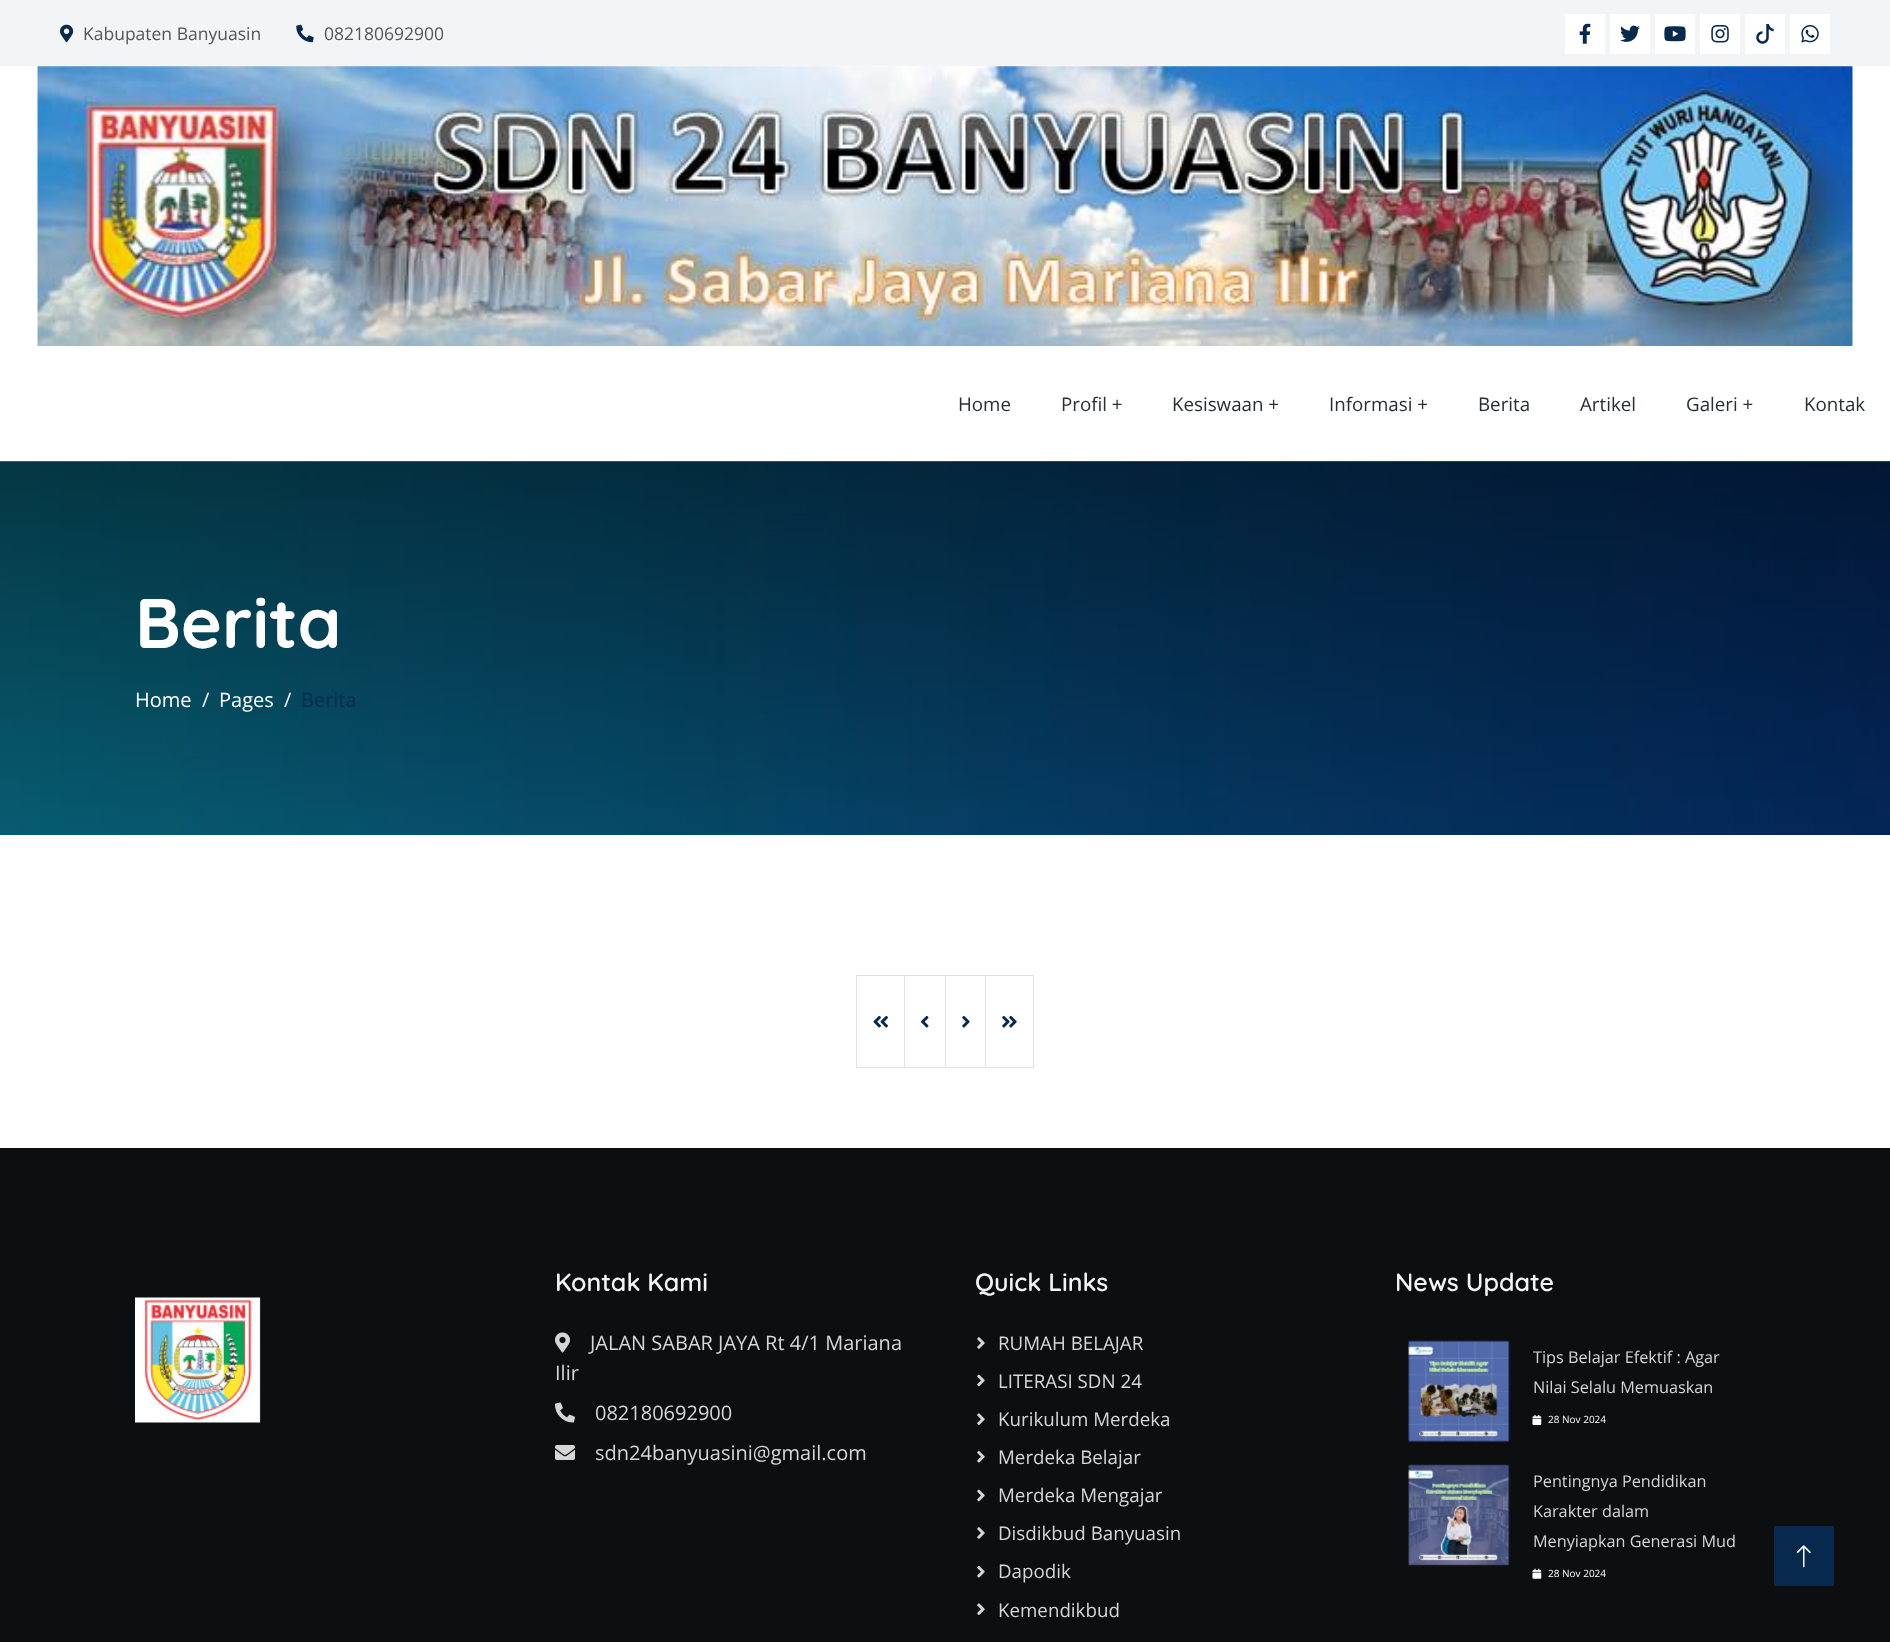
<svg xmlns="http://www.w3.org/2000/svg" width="1890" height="1642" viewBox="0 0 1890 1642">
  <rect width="100%" height="100%" fill="#ffffff"/>
  <rect x="0" y="0" width="1890" height="66" fill="#f3f4f5"/>
  <image x="60" y="24" width="14" height="19" href="img1.png"/>
  <text x="83" y="40" font-family="Open Sans" font-size="17.5" fill="#555555">Kabupaten Banyuasin</text>
  <image x="296" y="24" width="18" height="19" href="img2.png"/>
  <text x="324" y="40" font-family="Open Sans" font-size="17.5" fill="#555555">082180692900</text>
  <rect x="1565" y="14" width="40" height="40" fill="#ffffff"/>
  <image x="1579" y="23" width="12" height="21" href="img3.png"/>
  <rect x="1610" y="14" width="40" height="40" fill="#ffffff"/>
  <image x="1620" y="25" width="20" height="17" href="img4.png"/>
  <rect x="1655" y="14" width="40" height="40" fill="#ffffff"/>
  <image x="1664" y="26" width="22" height="16" href="img5.png"/>
  <rect x="1700" y="14" width="40" height="40" fill="#ffffff"/>
  <image x="1711" y="25" width="18" height="18" href="img6.png"/>
  <rect x="1745" y="14" width="40" height="40" fill="#ffffff"/>
  <image x="1756" y="24" width="18" height="20" href="img7.png"/>
  <rect x="1790" y="14" width="40" height="40" fill="#ffffff"/>
  <image x="1801" y="25" width="18" height="18" href="img8.png"/>
  <image x="37" y="66" width="1816" height="280" href="img9.png"/>
  <text x="958" y="411" font-family="Open Sans" font-size="18.75" fill="#282f34">Home</text>
  <text x="1061" y="411" font-family="Open Sans" font-size="18.75" fill="#282f34">Profil +</text>
  <text x="1172" y="411" font-family="Open Sans" font-size="18.75" fill="#282f34">Kesiswaan +</text>
  <text x="1329" y="411" font-family="Open Sans" font-size="18.75" fill="#282f34">Informasi +</text>
  <text x="1478" y="411" font-family="Open Sans" font-size="18.75" fill="#282f34">Berita</text>
  <text x="1580" y="411" font-family="Open Sans" font-size="18.75" fill="#282f34">Artikel</text>
  <text x="1686" y="411" font-family="Open Sans" font-size="18.75" fill="#282f34">Galeri +</text>
  <text x="1804" y="411" font-family="Open Sans" font-size="18.75" fill="#282f34">Kontak</text>
  <image x="0" y="461" width="1890" height="374" href="img10.png"/>
  <text x="135" y="648" font-family="Quicksand" font-size="70" font-weight="bold" fill="#ffffff">Berita</text>
  <text x="135" y="707" font-family="Open Sans" font-size="20" fill="#ffffff">Home</text>
  <text x="202" y="707" font-family="Open Sans" font-size="20" fill="#f3f4f5">/</text>
  <text x="219" y="707" font-family="Open Sans" font-size="20" fill="#ffffff">Pages</text>
  <text x="284" y="707" font-family="Open Sans" font-size="20" fill="#f3f4f5">/</text>
  <text x="301" y="707" font-family="Open Sans" font-size="20" fill="#07294d">Berita</text>
  <rect x="856.5" y="975.5" width="48" height="92" fill="none" stroke="#dee2e6"/>
  <image x="873" y="1015" width="15" height="13" href="img11.png"/>
  <rect x="904.5" y="975.5" width="41" height="92" fill="none" stroke="#dee2e6"/>
  <image x="921" y="1015" width="8" height="13" href="img12.png"/>
  <rect x="945.5" y="975.5" width="40" height="92" fill="none" stroke="#dee2e6"/>
  <image x="962" y="1015" width="8" height="13" href="img13.png"/>
  <rect x="985.5" y="975.5" width="48" height="92" fill="none" stroke="#dee2e6"/>
  <image x="1002" y="1015" width="15" height="13" href="img14.png"/>
  <rect x="0" y="1148" width="1890" height="494" fill="#0c0e10"/>
  <image x="135" y="1297" width="126" height="126" href="img15.png"/>
  <text x="555" y="1291" font-family="Quicksand" font-size="25" font-weight="600" fill="#f3f4f5">Kontak Kami</text>
  <image x="555" y="1332" width="15" height="21" href="img16.png"/>
  <text x="590" y="1350" font-family="Open Sans" font-size="20" fill="#d6d6d6">JALAN SABAR JAYA Rt 4/1 Mariana</text>
  <text x="555" y="1380" font-family="Open Sans" font-size="20" fill="#d6d6d6">Ilir</text>
  <image x="555" y="1402" width="20" height="21" href="img17.png"/>
  <text x="595" y="1420" font-family="Open Sans" font-size="20" fill="#d6d6d6">082180692900</text>
  <image x="555" y="1445" width="20" height="15" href="img18.png"/>
  <text x="595" y="1460" font-family="Open Sans" font-size="20" fill="#d6d6d6">sdn24banyuasini@gmail.com</text>
  <text x="975" y="1291" font-family="Quicksand" font-size="25" font-weight="600" fill="#f3f4f5">Quick Links</text>
  <image x="977" y="1337" width="8" height="12" href="img19.png"/>
  <text x="998" y="1350" font-family="Open Sans" font-size="18.75" fill="#d6d6d6">RUMAH BELAJAR</text>
  <image x="977" y="1374" width="8" height="13" href="img20.png"/>
  <text x="998" y="1388" font-family="Open Sans" font-size="18.75" fill="#d6d6d6">LITERASI SDN 24</text>
  <image x="977" y="1413" width="8" height="12" href="img21.png"/>
  <text x="998" y="1426" font-family="Open Sans" font-size="18.75" fill="#d6d6d6">Kurikulum Merdeka</text>
  <image x="977" y="1450" width="8" height="13" href="img22.png"/>
  <text x="998" y="1464" font-family="Open Sans" font-size="18.75" fill="#d6d6d6">Merdeka Belajar</text>
  <image x="977" y="1489" width="8" height="13" href="img20.png"/>
  <text x="998" y="1502" font-family="Open Sans" font-size="18.75" fill="#d6d6d6">Merdeka Mengajar</text>
  <image x="977" y="1527" width="8" height="12" href="img19.png"/>
  <text x="998" y="1540" font-family="Open Sans" font-size="18.75" fill="#d6d6d6">Disdikbud Banyuasin</text>
  <image x="977" y="1565" width="8" height="13" href="img22.png"/>
  <text x="998" y="1578" font-family="Open Sans" font-size="18.75" fill="#d6d6d6">Dapodik</text>
  <image x="977" y="1603" width="8" height="12" href="img21.png"/>
  <text x="998" y="1617" font-family="Open Sans" font-size="18.75" fill="#d6d6d6">Kemendikbud</text>
  <text x="1395" y="1291" font-family="Quicksand" font-size="25" font-weight="600" fill="#f3f4f5">News Update</text>
  <image x="1408" y="1340" width="102" height="102" href="img23.png"/>
  <text x="1533" y="1363" font-family="Open Sans" font-size="16.25" fill="#d6d6d6">Tips Belajar Efektif : Agar</text>
  <text x="1533" y="1393" font-family="Open Sans" font-size="16.25" fill="#d6d6d6">Nilai Selalu Memuaskan</text>
  <image x="1532" y="1415" width="10" height="10" href="img24.png"/>
  <text x="1548" y="1423" font-family="Open Sans" font-size="10" fill="#ffffff">28 Nov 2024</text>
  <image x="1408" y="1464" width="102" height="102" href="img25.png"/>
  <text x="1533" y="1487" font-family="Open Sans" font-size="16.25" fill="#d6d6d6">Pentingnya Pendidikan</text>
  <text x="1533" y="1517" font-family="Open Sans" font-size="16.25" fill="#d6d6d6">Karakter dalam</text>
  <text x="1533" y="1547" font-family="Open Sans" font-size="16.25" fill="#d6d6d6">Menyiapkan Generasi Mud</text>
  <image x="1532" y="1568" width="10" height="11" href="img26.png"/>
  <text x="1548" y="1577" font-family="Open Sans" font-size="10" fill="#ffffff">28 Nov 2024</text>
  <rect x="1774" y="1526" width="60" height="60" fill="#07294d"/>
  <image x="1796" y="1545" width="15" height="23" href="img27.png"/>
</svg>
